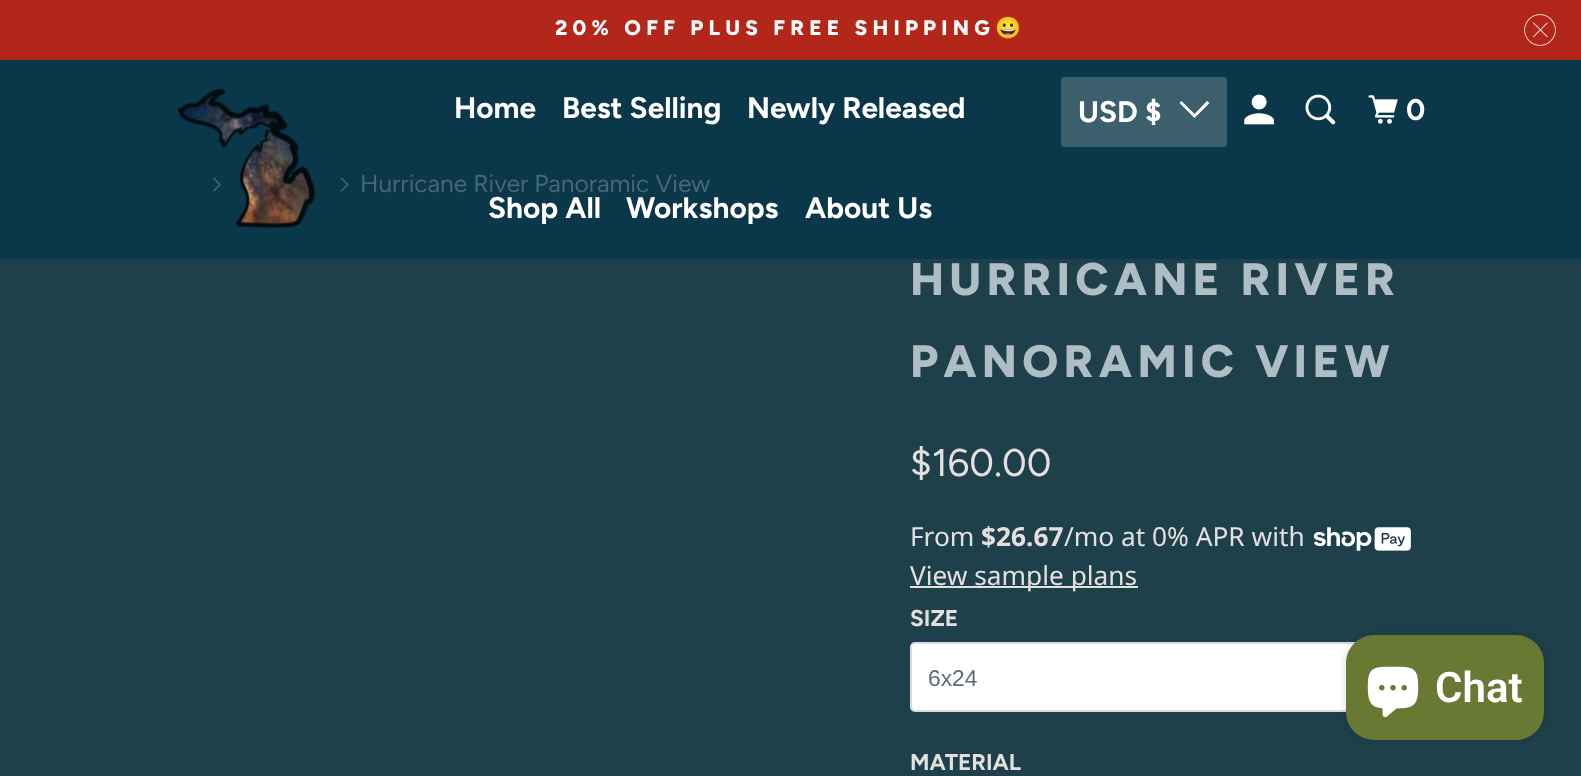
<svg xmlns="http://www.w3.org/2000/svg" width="1581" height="776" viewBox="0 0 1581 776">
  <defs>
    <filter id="blur1" x="-50%" y="-200%" width="200%" height="500%"><feGaussianBlur stdDeviation="4.5"/></filter>
  </defs>
  <rect width="100%" height="100%" fill="#1e404b"/>
  <rect x="0" y="60" width="1581" height="199" fill="#0b374a"/>
  <rect x="0" y="0" width="1581" height="60" fill="#b3271a"/>
  <text x="555" y="35" font-family="Figtree" font-size="21" font-weight="800" letter-spacing="5.25" fill="#ffffff">20% OFF PLUS FREE SHIPPING</text>
  <text x="995" y="35" font-family="Noto Color Emoji" font-size="21" font-weight="bold" letter-spacing="5.25" fill="#ffffff">😀</text>
  <image x="1524" y="14" width="32" height="32" href="img1.png"/>
  <image x="213" y="177" width="8" height="15" href="img6.png"/>
  <image x="176" y="88" width="140" height="140" href="img2.png"/>
  <text x="454" y="118" font-family="Figtree" font-size="29.75" font-weight="bold" fill="#ffffff">Home</text>
  <text x="562" y="118" font-family="Figtree" font-size="29.75" font-weight="bold" fill="#ffffff">Best Selling</text>
  <text x="747" y="118" font-family="Figtree" font-size="29.75" font-weight="bold" fill="#ffffff">Newly Released</text>
  <text x="488" y="218" font-family="Figtree" font-size="29.75" font-weight="bold" fill="#ffffff">Shop All</text>
  <text x="626" y="218" font-family="Figtree" font-size="29.75" font-weight="bold" fill="#ffffff">Workshops</text>
  <text x="805" y="218" font-family="Figtree" font-size="29.75" font-weight="bold" fill="#ffffff">About Us</text>
  <rect x="1061" y="77" width="166" height="70" rx="4" fill="#3c5f6e"/>
  <text x="1078" y="122" font-family="Figtree" font-size="29.75" font-weight="bold" fill="#ffffff">USD $</text>
  <path d="M1187 110.5L1179.5 103L1181.5 101L1194.5 114L1207 101L1209.5 103L1194.5 118Z" fill="#ffffff"/>
  <image x="1244" y="94" width="30" height="31" href="img3.png"/>
  <image x="1305" y="94" width="31" height="31" href="img4.png"/>
  <image x="1368" y="95" width="30" height="29" href="img5.png"/>
  <text x="1406" y="120" font-family="Figtree" font-size="29.75" font-weight="bold" fill="#ffffff">0</text>
  <image x="340" y="177" width="9" height="15" href="img7.png"/>
  <text x="360" y="192" font-family="Figtree" font-size="24.5" fill="#476776">Hurricane River Panoramic View</text>
  <text x="910" y="295" font-family="Figtree" font-size="45.5" font-weight="800" letter-spacing="5.25" fill="#afbdc5">HURRICANE RIVER</text>
  <text x="910" y="377" font-family="Figtree" font-size="45.5" font-weight="800" letter-spacing="5.25" fill="#afbdc5">PANORAMIC VIEW</text>
  <text x="910" y="476" font-family="Figtree" font-size="38.5" fill="#e5dfdf">$160.00</text>
  <text x="910" y="546" font-family="Noto Sans" font-size="26.25" fill="#e5dfdf">From</text>
  <text x="981" y="546" font-family="Noto Sans" font-size="26.25" font-weight="bold" fill="#e5dfdf">$26.67</text>
  <text x="1064" y="546" font-family="Noto Sans" font-size="26.25" fill="#e5dfdf">/mo at 0% APR with</text>
  <image x="1313" y="527" width="98" height="24" href="img8.png"/>
  <rect x="910" y="586" width="228" height="2" fill="#e5dfdf"/>
  <text x="910" y="585" font-family="Noto Sans" font-size="26.25" fill="#e5dfdf">View sample plans</text>
  <text x="910" y="626" font-family="Figtree" font-size="22.75" font-weight="bold" fill="#e5dfdf">SIZE</text>
  <rect x="911" y="643" width="551" height="68" rx="4" fill="#ffffff" stroke="#d9dbdc" stroke-width="2"/>
  <text x="928" y="686" font-family="Liberation Sans" font-size="22.75" fill="#5f6a7d">6x24</text>
  <text x="910" y="770" font-family="Figtree" font-size="22.75" font-weight="bold" fill="#e5dfdf">MATERIAL</text>
  <rect x="1346" y="635" width="198" height="105" rx="28" fill="#000000" fill-opacity="0.15" filter="url(#blur1)"/>
  <rect x="1346" y="635" width="198" height="105" rx="28" fill="#697933"/>
  <image x="1367" y="666" width="52" height="52" href="img9.png"/>
  <text x="1435" y="702" font-family="Roboto" font-size="42" font-weight="600" fill="#ffffff">Chat</text>
</svg>
